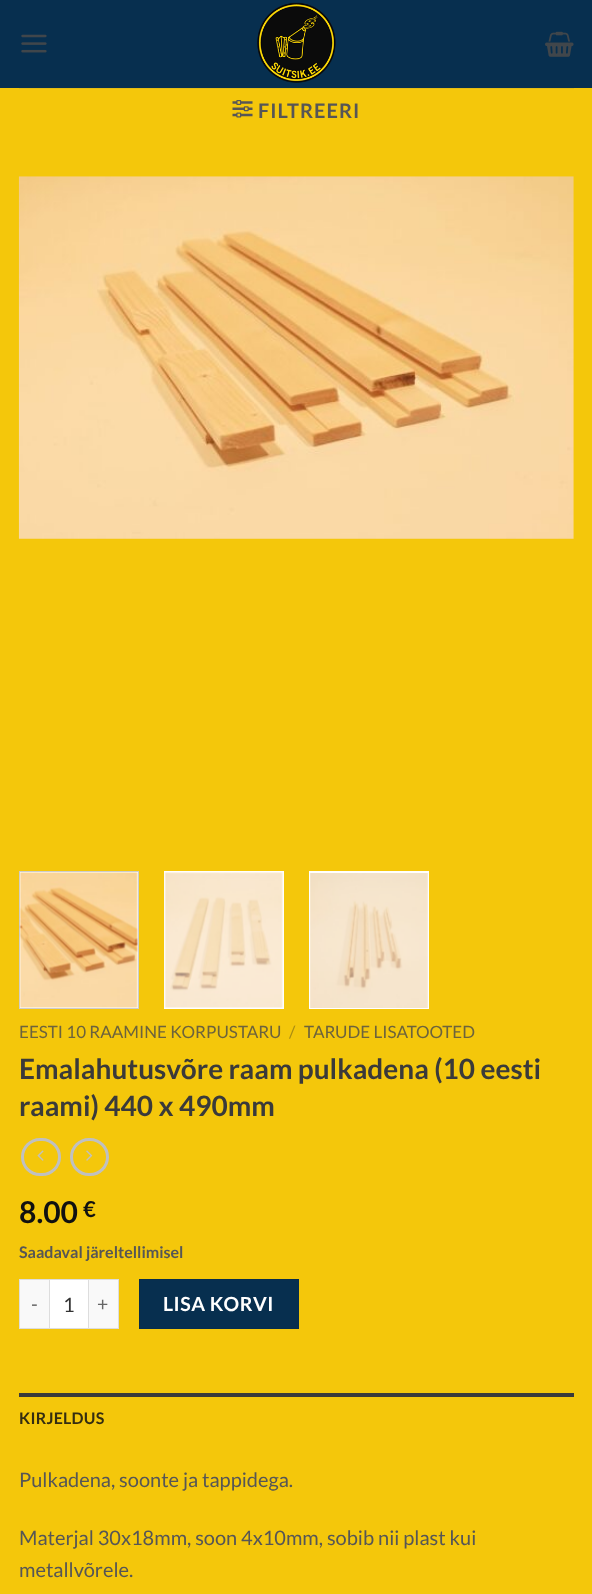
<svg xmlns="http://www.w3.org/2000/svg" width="592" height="1594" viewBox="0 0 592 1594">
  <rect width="100%" height="100%" fill="#f4c70b"/>
  <rect x="0" y="0" width="592" height="88" fill="#072f4f"/>
  <image x="21" y="34" width="26" height="19" href="img1.png"/>
  <image x="257" y="2" width="79" height="81" href="img2.png"/>
  <image x="545" y="31" width="29" height="26" href="img3.png"/>
  <rect x="19" y="88" width="555" height="1" fill="#e4bc13"/>
  <image x="232" y="100" width="21" height="18" href="img4.png"/>
  <text x="258" y="118" font-family="Lato" font-size="20" font-weight="bold" letter-spacing="1" fill="#565656">FILTREERI</text>
  <image x="18" y="176" width="556" height="363" href="img5.png"/>
  <rect x="19.5" y="871.5" width="119" height="137" fill="#ffffff" stroke="#cccccc"/>
  <image x="19" y="872" width="119" height="136" href="img6.png"/>
  <rect x="164" y="871" width="120" height="138" fill="#ffffff"/>
  <image x="164" y="872" width="119" height="136" href="img7.png"/>
  <rect x="309" y="871" width="120" height="138" fill="#ffffff"/>
  <image x="310" y="873" width="118" height="135" href="img8.png"/>
  <text x="19" y="1038" font-family="Lato" font-size="17" fill="#6c633d">EESTI 10 RAAMINE KORPUSTARU</text>
  <text x="289" y="1038" font-family="Lato" font-size="17" fill="#aa8d13">/</text>
  <text x="304" y="1038" font-family="Lato" font-size="17" fill="#6c633d">TARUDE LISATOOTED</text>
  <text x="19" y="1079" font-family="Lato" font-size="28" font-weight="bold" fill="#3a3a3a">Emalahutusvõre raam pulkadena (10 eesti</text>
  <text x="19" y="1116" font-family="Lato" font-size="28" font-weight="bold" fill="#3a3a3a">raami) 440 x 490mm</text>
  <rect x="22.5" y="1139.5" width="37" height="35" rx="17.5" fill="none" stroke="#c0c0c0" stroke-width="3"/>
  <image x="37" y="1150" width="7" height="11" href="img9.png"/>
  <rect x="71.5" y="1139.5" width="36" height="35" rx="17.5" fill="none" stroke="#c0c0c0" stroke-width="3"/>
  <image x="86" y="1150" width="7" height="11" href="img10.png"/>
  <text x="19" y="1223" font-family="Lato" font-size="30" font-weight="bold" fill="#111111">8.00</text>
  <text x="83" y="1217" font-family="Lato" font-size="22" font-weight="bold" fill="#111111">€</text>
  <text x="19" y="1258" font-family="Lato" font-size="16" font-weight="bold" fill="#565656">Saadaval järeltellimisel</text>
  <rect x="20" y="1280" width="29" height="48" fill="#f9f9f9"/>
  <rect x="19" y="1279" width="30" height="1" fill="#dddddd"/>
  <rect x="19" y="1328" width="30" height="1" fill="#dddddd"/>
  <rect x="19" y="1279" width="1" height="50" fill="#dddddd"/>
  <text x="31" y="1311" font-family="Lato" font-size="19.5" letter-spacing="0.5" fill="#666666">-</text>
  <rect x="49.5" y="1279.5" width="39" height="49" fill="#ffffff" stroke="#dddddd"/>
  <text x="63" y="1312" font-family="Lato" font-size="20" fill="#333333">1</text>
  <rect x="89" y="1280" width="29" height="48" fill="#f9f9f9"/>
  <rect x="89" y="1279" width="30" height="1" fill="#dddddd"/>
  <rect x="118" y="1279" width="1" height="50" fill="#dddddd"/>
  <rect x="89" y="1328" width="30" height="1" fill="#dddddd"/>
  <text x="97" y="1311" font-family="Lato" font-size="19.5" letter-spacing="0.5" fill="#666666">+</text>
  <rect x="139.5" y="1279.5" width="159" height="49" fill="#072f4f" stroke="#072d4b"/>
  <text x="163" y="1311" font-family="Lato" font-size="19.5" font-weight="bold" letter-spacing="0.5" fill="#ffffff">LISA KORVI</text>
  <rect x="19" y="1393" width="555" height="4" fill="#3a3a3a"/>
  <text x="19" y="1424" font-family="Lato" font-size="16" font-weight="bold" letter-spacing="0.25" fill="#342d11">KIRJELDUS</text>
  <text x="19" y="1487" font-family="Lato" font-size="20" fill="#565656">Pulkadena, soonte ja tappidega.</text>
  <text x="19" y="1545" font-family="Lato" font-size="20" fill="#565656">Materjal 30x18mm, soon 4x10mm, sobib nii plast kui</text>
  <text x="19" y="1577" font-family="Lato" font-size="20" fill="#565656">metallvõrele.</text>
</svg>
